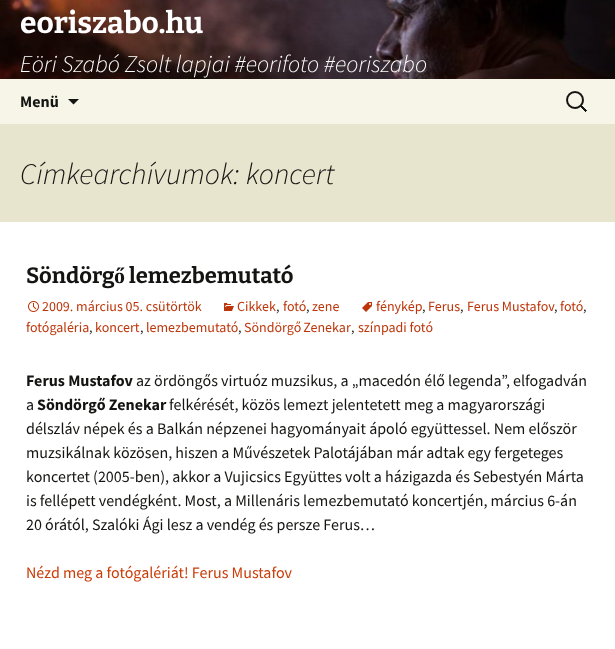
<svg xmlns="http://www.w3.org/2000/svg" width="615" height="649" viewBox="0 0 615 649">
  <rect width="100%" height="100%" fill="#ffffff"/>
  <image x="0" y="0" width="615" height="79" href="img1.png"/>
  <text x="20" y="33" font-family="Bitter" font-size="30" font-weight="100" fill="#ffffff">eoriszabo.hu</text>
  <text x="20" y="72" font-family="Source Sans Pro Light" font-size="24" font-weight="300" font-style="italic" fill="#ffffff">Eöri Szabó Zsolt lapjai #eorifoto #eoriszabo</text>
  <rect x="0" y="79" width="615" height="45" fill="#f7f5e7"/>
  <text x="20" y="107" font-family="Source Sans Pro" font-size="16" font-weight="bold" fill="#141412">Menü</text>
  <path d="M68 99L73.5 104.5L79 99Z" fill="#141412"/>
  <image x="566" y="91" width="21" height="21" href="img2.png"/>
  <rect x="0" y="124" width="615" height="98" fill="#e8e5ce"/>
  <text x="20" y="184" font-family="Source Sans Pro Light" font-size="30" font-weight="300" font-style="italic" fill="#141412">Címkearchívumok: koncert</text>
  <text x="26" y="283" font-family="Bitter" font-size="22" font-weight="100" fill="#141412">Söndörg</text>
  <text x="114" y="283" font-family="Liberation Serif" font-size="22" font-weight="bold" fill="#141412">ő</text>
  <text x="129" y="283" font-family="Bitter" font-size="22" font-weight="100" fill="#141412">lemezbemutató</text>
  <image x="362" y="302" width="10" height="10" href="img3.png"/>
  <text x="376" y="311" font-family="Source Sans Pro" font-size="14" fill="#bc360a">fénykép</text>
  <text x="422" y="311" font-family="Source Sans Pro" font-size="14" fill="#141412">,</text>
  <text x="428" y="311" font-family="Source Sans Pro" font-size="14" fill="#bc360a">Ferus</text>
  <text x="460" y="311" font-family="Source Sans Pro" font-size="14" fill="#141412">,</text>
  <text x="467" y="311" font-family="Source Sans Pro" font-size="14" fill="#bc360a">Ferus Mustafov</text>
  <text x="554" y="311" font-family="Source Sans Pro" font-size="14" fill="#141412">,</text>
  <text x="560" y="311" font-family="Source Sans Pro" font-size="14" fill="#bc360a">fotó</text>
  <text x="583" y="311" font-family="Source Sans Pro" font-size="14" fill="#141412">,</text>
  <text x="26" y="332" font-family="Source Sans Pro" font-size="14" fill="#bc360a">fotógaléria</text>
  <text x="89" y="332" font-family="Source Sans Pro" font-size="14" fill="#141412">,</text>
  <text x="95" y="332" font-family="Source Sans Pro" font-size="14" fill="#bc360a">koncert</text>
  <text x="140" y="332" font-family="Source Sans Pro" font-size="14" fill="#141412">,</text>
  <text x="146" y="332" font-family="Source Sans Pro" font-size="14" fill="#bc360a">lemezbemutató</text>
  <text x="238" y="332" font-family="Source Sans Pro" font-size="14" fill="#141412">,</text>
  <text x="244" y="332" word-spacing="-1" font-family="Source Sans Pro" font-size="14" fill="#bc360a">Söndörgő Zenekar</text>
  <text x="351" y="332" font-family="Source Sans Pro" font-size="14" fill="#141412">,</text>
  <text x="358" y="332" font-family="Source Sans Pro" font-size="14" fill="#bc360a">színpadi fotó</text>
  <image x="28" y="301" width="11" height="11" href="img4.png"/>
  <text x="42" y="311" font-family="Source Sans Pro" font-size="14" fill="#bc360a">2009. március 05. csütörtök</text>
  <image x="224" y="303" width="10" height="8" href="img5.png"/>
  <text x="237" y="311" font-family="Source Sans Pro" font-size="14" fill="#bc360a">Cikkek</text>
  <text x="276" y="311" font-family="Source Sans Pro" font-size="14" fill="#141412">,</text>
  <text x="283" y="311" font-family="Source Sans Pro" font-size="14" fill="#bc360a">fotó</text>
  <text x="306" y="311" font-family="Source Sans Pro" font-size="14" fill="#141412">,</text>
  <text x="312" y="311" font-family="Source Sans Pro" font-size="14" fill="#bc360a">zene</text>
  <text x="26" y="386" font-family="Source Sans Pro" font-size="16" font-weight="bold" fill="#141412">Ferus Mustafov</text>
  <text x="136" y="386" font-family="Source Sans Pro" font-size="16" fill="#141412">az ördöngős virtuóz muzsikus, a „macedón élő legenda”, elfogadván</text>
  <text x="26" y="410" font-family="Source Sans Pro" font-size="16" fill="#141412">a</text>
  <text x="37" y="410" font-family="Source Sans Pro" font-size="16" font-weight="bold" fill="#141412">Söndörgő Zenekar</text>
  <text x="169" y="410" font-family="Source Sans Pro" font-size="16" fill="#141412">felkérését, közös lemezt jelentetett meg a magyarországi</text>
  <text x="26" y="434" font-family="Source Sans Pro" font-size="16" fill="#141412">délszláv népek és a Balkán népzenei hagyományait ápoló együttessel. Nem először</text>
  <text x="26" y="458" font-family="Source Sans Pro" font-size="16" fill="#141412">muzsikálnak közösen, hiszen a Művészetek Palotájában már adtak egy fergeteges</text>
  <text x="26" y="482" font-family="Source Sans Pro" font-size="16" fill="#141412">koncertet (2005-ben), akkor a Vujicsics Együttes volt a házigazda és Sebestyén Márta</text>
  <text x="26" y="506" font-family="Source Sans Pro" font-size="16" fill="#141412">is fellépett vendégként. Most, a Millenáris lemezbemutató koncertjén, március 6-án</text>
  <text x="26" y="530" font-family="Source Sans Pro" font-size="16" fill="#141412">20 órától, Szalóki Ági lesz a vendég és persze Ferus…</text>
  <text x="26" y="578" font-family="Source Sans Pro" font-size="16" fill="#ca3c08">Nézd meg a fotógalériát! Ferus Mustafov</text>
</svg>
